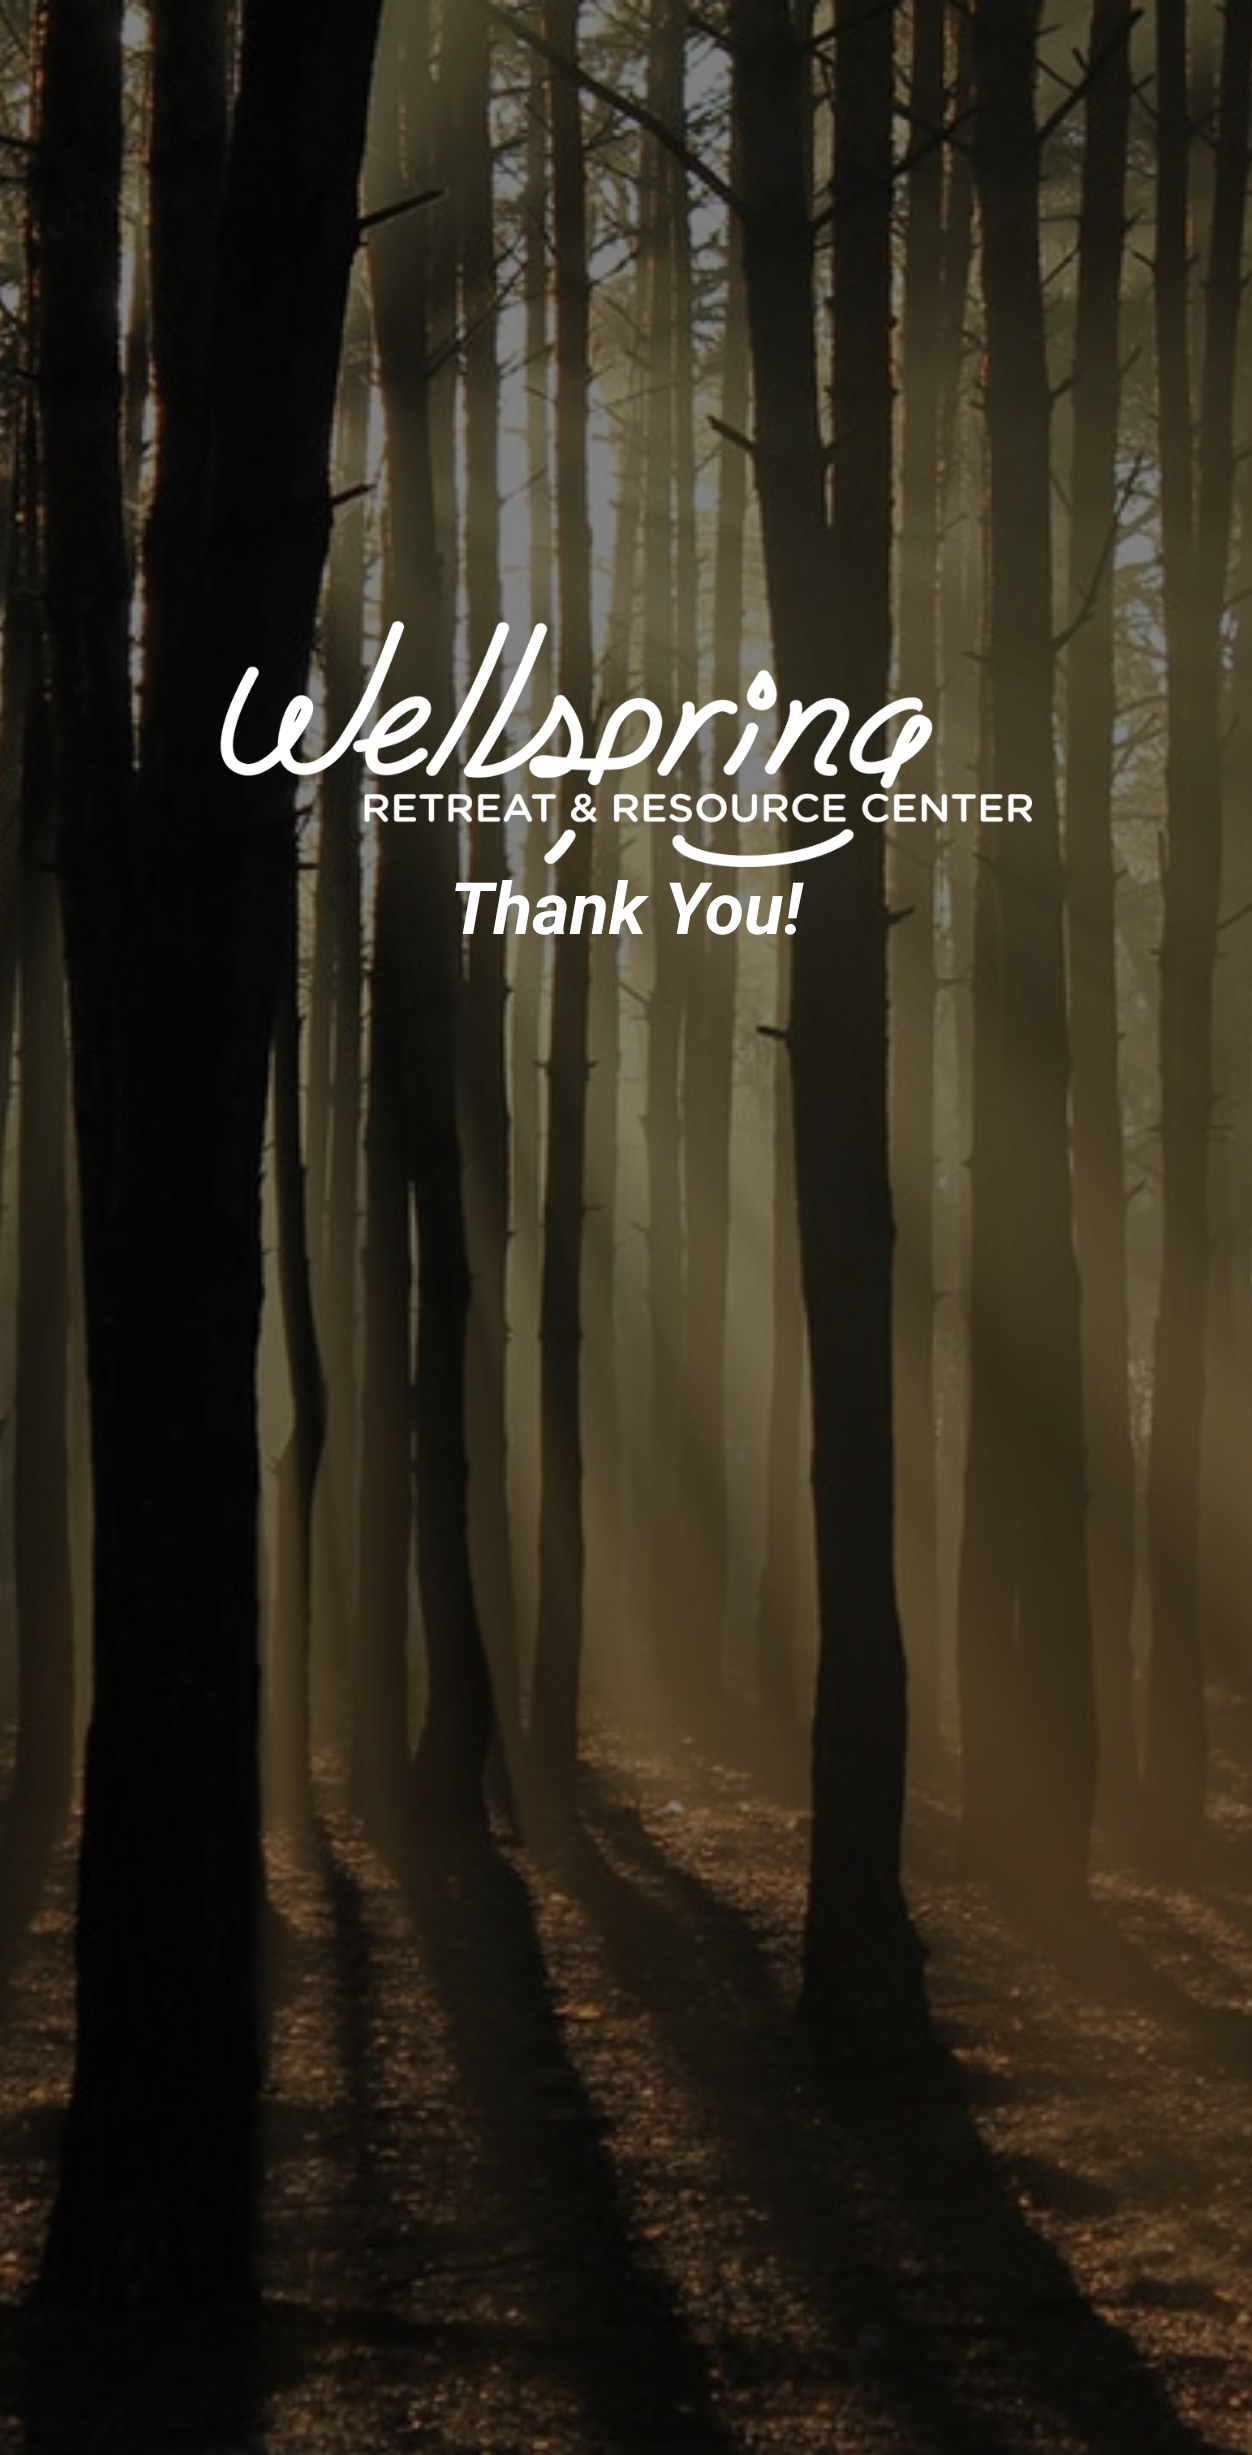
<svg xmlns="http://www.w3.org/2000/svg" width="1252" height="2455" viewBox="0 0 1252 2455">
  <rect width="100%" height="100%" fill="#ffffff"/>
  <image x="0" y="0" width="1252" height="2455" href="img1.png"/>
  <image x="220" y="621" width="812" height="246" href="img2.png"/>
  <text x="450" y="934" font-family="Roboto" font-size="72" font-weight="bold" font-style="italic" fill="#ffffff">Thank You!</text>
</svg>
